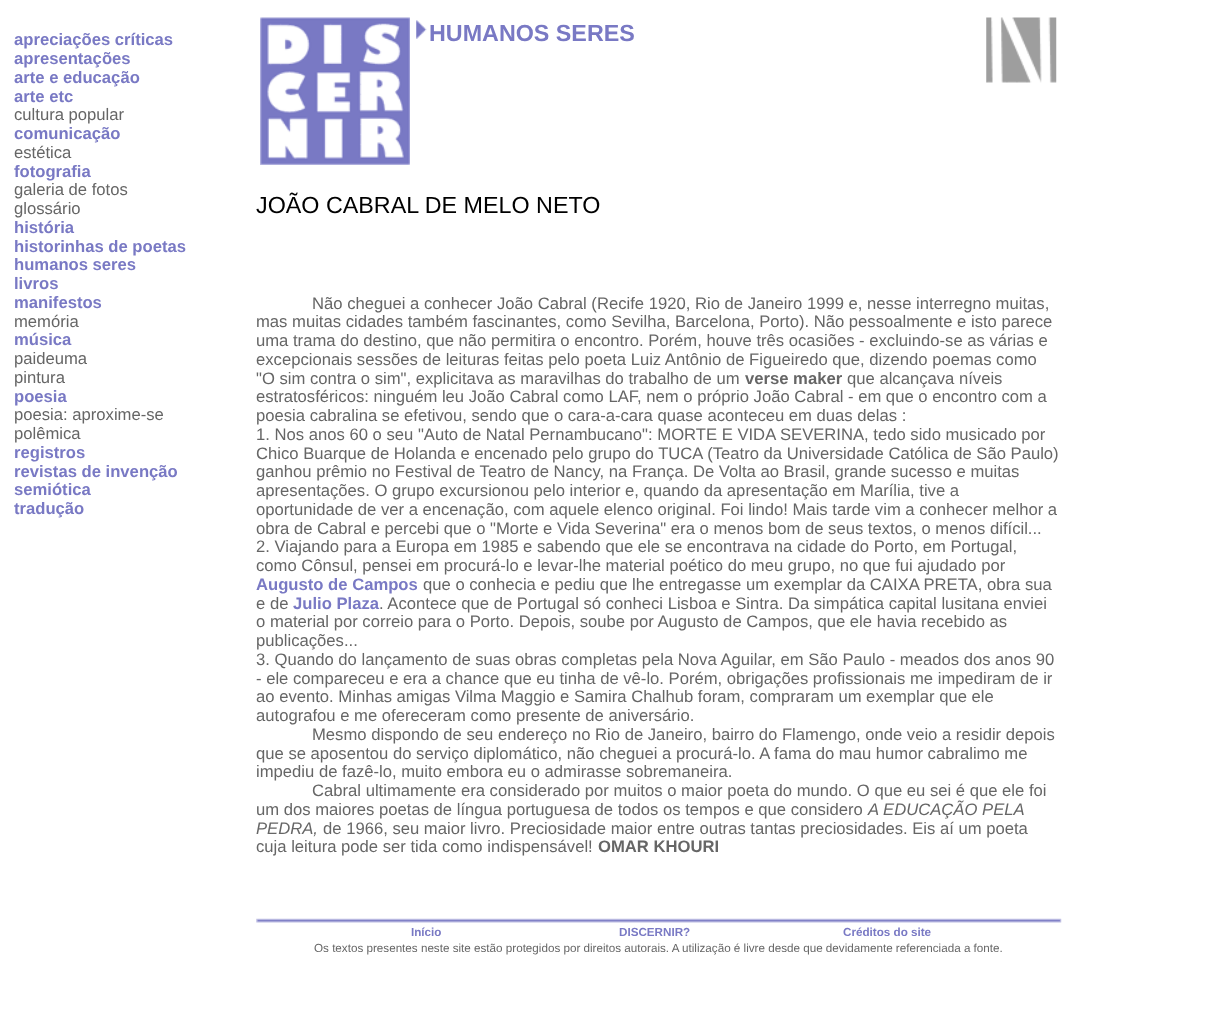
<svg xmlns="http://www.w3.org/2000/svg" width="1227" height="1012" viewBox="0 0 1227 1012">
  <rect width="100%" height="100%" fill="#ffffff"/>
  <text x="14" y="45" font-family="Liberation Sans" font-size="16.65" font-weight="bold" fill="#7979c4">apreciações críticas</text>
  <text x="14" y="64" font-family="Liberation Sans" font-size="16.65" font-weight="bold" fill="#7979c4">apresentações</text>
  <text x="14" y="83" font-family="Liberation Sans" font-size="16.65" font-weight="bold" fill="#7979c4">arte e educação</text>
  <text x="14" y="102" font-family="Liberation Sans" font-size="16.65" font-weight="bold" fill="#7979c4">arte etc</text>
  <text x="14" y="120" font-family="Liberation Sans" font-size="16.65" fill="#666666">cultura popular</text>
  <text x="14" y="139" font-family="Liberation Sans" font-size="16.65" font-weight="bold" fill="#7979c4">comunicação</text>
  <text x="14" y="158" font-family="Liberation Sans" font-size="16.65" fill="#666666">estética</text>
  <text x="14" y="177" font-family="Liberation Sans" font-size="16.65" font-weight="bold" fill="#7979c4">fotografia</text>
  <text x="14" y="195" font-family="Liberation Sans" font-size="16.65" fill="#666666">galeria de fotos</text>
  <text x="14" y="214" font-family="Liberation Sans" font-size="16.65" fill="#666666">glossário</text>
  <text x="14" y="233" font-family="Liberation Sans" font-size="16.65" font-weight="bold" fill="#7979c4">história</text>
  <text x="14" y="252" font-family="Liberation Sans" font-size="16.65" font-weight="bold" fill="#7979c4">historinhas de poetas</text>
  <text x="14" y="270" font-family="Liberation Sans" font-size="16.65" font-weight="bold" fill="#7979c4">humanos seres</text>
  <text x="14" y="289" font-family="Liberation Sans" font-size="16.65" font-weight="bold" fill="#7979c4">livros</text>
  <text x="14" y="308" font-family="Liberation Sans" font-size="16.65" font-weight="bold" fill="#7979c4">manifestos</text>
  <text x="14" y="327" font-family="Liberation Sans" font-size="16.65" fill="#666666">memória</text>
  <text x="14" y="345" font-family="Liberation Sans" font-size="16.65" font-weight="bold" fill="#7979c4">música</text>
  <text x="14" y="364" font-family="Liberation Sans" font-size="16.65" fill="#666666">paideuma</text>
  <text x="14" y="383" font-family="Liberation Sans" font-size="16.65" fill="#666666">pintura</text>
  <text x="14" y="402" font-family="Liberation Sans" font-size="16.65" font-weight="bold" fill="#7979c4">poesia</text>
  <text x="14" y="420" font-family="Liberation Sans" font-size="16.65" fill="#666666">poesia: aproxime-se</text>
  <text x="14" y="439" font-family="Liberation Sans" font-size="16.65" fill="#666666">polêmica</text>
  <text x="14" y="458" font-family="Liberation Sans" font-size="16.65" font-weight="bold" fill="#7979c4">registros</text>
  <text x="14" y="477" font-family="Liberation Sans" font-size="16.65" font-weight="bold" fill="#7979c4">revistas de invenção</text>
  <text x="14" y="495" font-family="Liberation Sans" font-size="16.65" font-weight="bold" fill="#7979c4">semiótica</text>
  <text x="14" y="514" font-family="Liberation Sans" font-size="16.65" font-weight="bold" fill="#7979c4">tradução</text>
  <image x="260" y="17" width="150" height="148" href="img1.png"/>
  <image x="416" y="20" width="11" height="19" href="img2.png"/>
  <text x="429" y="41" font-family="Liberation Sans" font-size="23.3" font-weight="bold" fill="#7979c4">HUMANOS SERES</text>
  <image x="986" y="17" width="71" height="66" href="img3.png"/>
  <text x="256" y="213" font-family="Liberation Sans" font-size="23.3" fill="#000000">JOÃO CABRAL DE MELO NETO</text>
  <text x="312" y="309" font-family="Liberation Sans" font-size="16.65" fill="#666666">Não cheguei a conhecer João Cabral (Recife 1920, Rio de Janeiro 1999 e, nesse interregno muitas,</text>
  <text x="256" y="327" font-family="Liberation Sans" font-size="16.65" fill="#666666">mas muitas cidades também fascinantes, como Sevilha, Barcelona, Porto). Não pessoalmente e isto parece</text>
  <text x="256" y="346" font-family="Liberation Sans" font-size="16.65" fill="#666666">uma trama do destino, que não permitira o encontro. Porém, houve três ocasiões - excluindo-se as várias e</text>
  <text x="256" y="365" font-family="Liberation Sans" font-size="16.65" fill="#666666">excepcionais sessões de leituras feitas pelo poeta Luiz Antônio de Figueiredo que, dizendo poemas como</text>
  <text x="256" y="384" font-family="Liberation Sans" font-size="16.65" fill="#666666">"O sim contra o sim", explicitava as maravilhas do trabalho de um</text>
  <text x="745" y="384" font-family="Liberation Sans" font-size="16.65" font-weight="bold" fill="#666666">verse maker</text>
  <text x="847" y="384" font-family="Liberation Sans" font-size="16.65" fill="#666666">que alcançava níveis</text>
  <text x="256" y="402" font-family="Liberation Sans" font-size="16.65" fill="#666666">estratosféricos: ninguém leu João Cabral como LAF, nem o próprio João Cabral - em que o encontro com a</text>
  <text x="256" y="421" font-family="Liberation Sans" font-size="16.65" fill="#666666">poesia cabralina se efetivou, sendo que o cara-a-cara quase aconteceu em duas delas :</text>
  <text x="256" y="440" font-family="Liberation Sans" font-size="16.65" fill="#666666">1. Nos anos 60 o seu "Auto de Natal Pernambucano": MORTE E VIDA SEVERINA, tedo sido musicado por</text>
  <text x="256" y="459" font-family="Liberation Sans" font-size="16.65" fill="#666666">Chico Buarque de Holanda e encenado pelo grupo do TUCA (Teatro da Universidade Católica de São Paulo)</text>
  <text x="256" y="477" font-family="Liberation Sans" font-size="16.65" fill="#666666">ganhou prêmio no Festival de Teatro de Nancy, na França. De Volta ao Brasil, grande sucesso e muitas</text>
  <text x="256" y="496" font-family="Liberation Sans" font-size="16.65" fill="#666666">apresentações. O grupo excursionou pelo interior e, quando da apresentação em Marília, tive a</text>
  <text x="256" y="515" font-family="Liberation Sans" font-size="16.65" fill="#666666">oportunidade de ver a encenação, com aquele elenco original. Foi lindo! Mais tarde vim a conhecer melhor a</text>
  <text x="256" y="534" font-family="Liberation Sans" font-size="16.65" fill="#666666">obra de Cabral e percebi que o "Morte e Vida Severina" era o menos bom de seus textos, o menos difícil...</text>
  <text x="256" y="552" font-family="Liberation Sans" font-size="16.65" fill="#666666">2. Viajando para a Europa em 1985 e sabendo que ele se encontrava na cidade do Porto, em Portugal,</text>
  <text x="256" y="571" font-family="Liberation Sans" font-size="16.65" fill="#666666">como Cônsul, pensei em procurá-lo e levar-lhe material poético do meu grupo, no que fui ajudado por</text>
  <text x="256" y="590" font-family="Liberation Sans" font-size="16.65" font-weight="bold" fill="#7979c4">Augusto de Campos</text>
  <text x="423" y="590" font-family="Liberation Sans" font-size="16.65" fill="#666666">que o conhecia e pediu que lhe entregasse um exemplar da CAIXA PRETA, obra sua</text>
  <text x="256" y="609" font-family="Liberation Sans" font-size="16.65" fill="#666666">e de</text>
  <text x="293" y="609" font-family="Liberation Sans" font-size="16.65" font-weight="bold" fill="#7979c4">Julio Plaza</text>
  <text x="379" y="609" font-family="Liberation Sans" font-size="16.65" fill="#666666">. Acontece que de Portugal só conheci Lisboa e Sintra. Da simpática capital lusitana enviei</text>
  <text x="256" y="627" font-family="Liberation Sans" font-size="16.65" fill="#666666">o material por correio para o Porto. Depois, soube por Augusto de Campos, que ele havia recebido as</text>
  <text x="256" y="646" font-family="Liberation Sans" font-size="16.65" fill="#666666">publicações...</text>
  <text x="256" y="665" font-family="Liberation Sans" font-size="16.65" fill="#666666">3. Quando do lançamento de suas obras completas pela Nova Aguilar, em São Paulo - meados dos anos 90</text>
  <text x="256" y="684" font-family="Liberation Sans" font-size="16.65" fill="#666666">- ele compareceu e era a chance que eu tinha de vê-lo. Porém, obrigações profissionais me impediram de ir</text>
  <text x="256" y="702" font-family="Liberation Sans" font-size="16.65" fill="#666666">ao evento. Minhas amigas Vilma Maggio e Samira Chalhub foram, compraram um exemplar que ele</text>
  <text x="256" y="721" font-family="Liberation Sans" font-size="16.65" fill="#666666">autografou e me ofereceram como presente de aniversário.</text>
  <text x="312" y="740" font-family="Liberation Sans" font-size="16.65" fill="#666666">Mesmo dispondo de seu endereço no Rio de Janeiro, bairro do Flamengo, onde veio a residir depois</text>
  <text x="256" y="759" font-family="Liberation Sans" font-size="16.65" fill="#666666">que se aposentou do serviço diplomático, não cheguei a procurá-lo. A fama do mau humor cabralimo me</text>
  <text x="256" y="777" font-family="Liberation Sans" font-size="16.65" fill="#666666">impediu de fazê-lo, muito embora eu o admirasse sobremaneira.</text>
  <text x="312" y="796" font-family="Liberation Sans" font-size="16.65" fill="#666666">Cabral ultimamente era considerado por muitos o maior poeta do mundo. O que eu sei é que ele foi</text>
  <text x="256" y="815" font-family="Liberation Sans" font-size="16.65" fill="#666666">um dos maiores poetas de língua portuguesa de todos os tempos e que considero</text>
  <text x="868" y="815" font-family="Liberation Sans" font-size="16.65" font-style="italic" fill="#666666">A EDUCAÇÃO PELA</text>
  <text x="256" y="834" font-family="Liberation Sans" font-size="16.65" font-style="italic" fill="#666666">PEDRA,</text>
  <text x="323" y="834" font-family="Liberation Sans" font-size="16.65" fill="#666666">de 1966, seu maior livro. Preciosidade maior entre outras tantas preciosidades. Eis aí um poeta</text>
  <text x="256" y="852" font-family="Liberation Sans" font-size="16.65" fill="#666666">cuja leitura pode ser tida como indispensável!</text>
  <text x="598" y="852" font-family="Liberation Sans" font-size="16.65" font-weight="bold" fill="#666666">OMAR KHOURI</text>
  <image x="256" y="918" width="806" height="5" href="img4.png"/>
  <text x="411" y="936" font-family="Liberation Sans" font-size="11.67" font-weight="bold" fill="#7979c4">Início</text>
  <text x="619" y="936" font-family="Liberation Sans" font-size="11.67" font-weight="bold" fill="#7979c4">DISCERNIR?</text>
  <text x="843" y="936" font-family="Liberation Sans" font-size="11.67" font-weight="bold" fill="#7979c4">Créditos do site</text>
  <text x="314" y="952" font-family="Liberation Sans" font-size="11.67" fill="#666666">Os textos presentes neste site estão protegidos por direitos autorais. A utilização é livre desde que devidamente referenciada a fonte.</text>
</svg>
